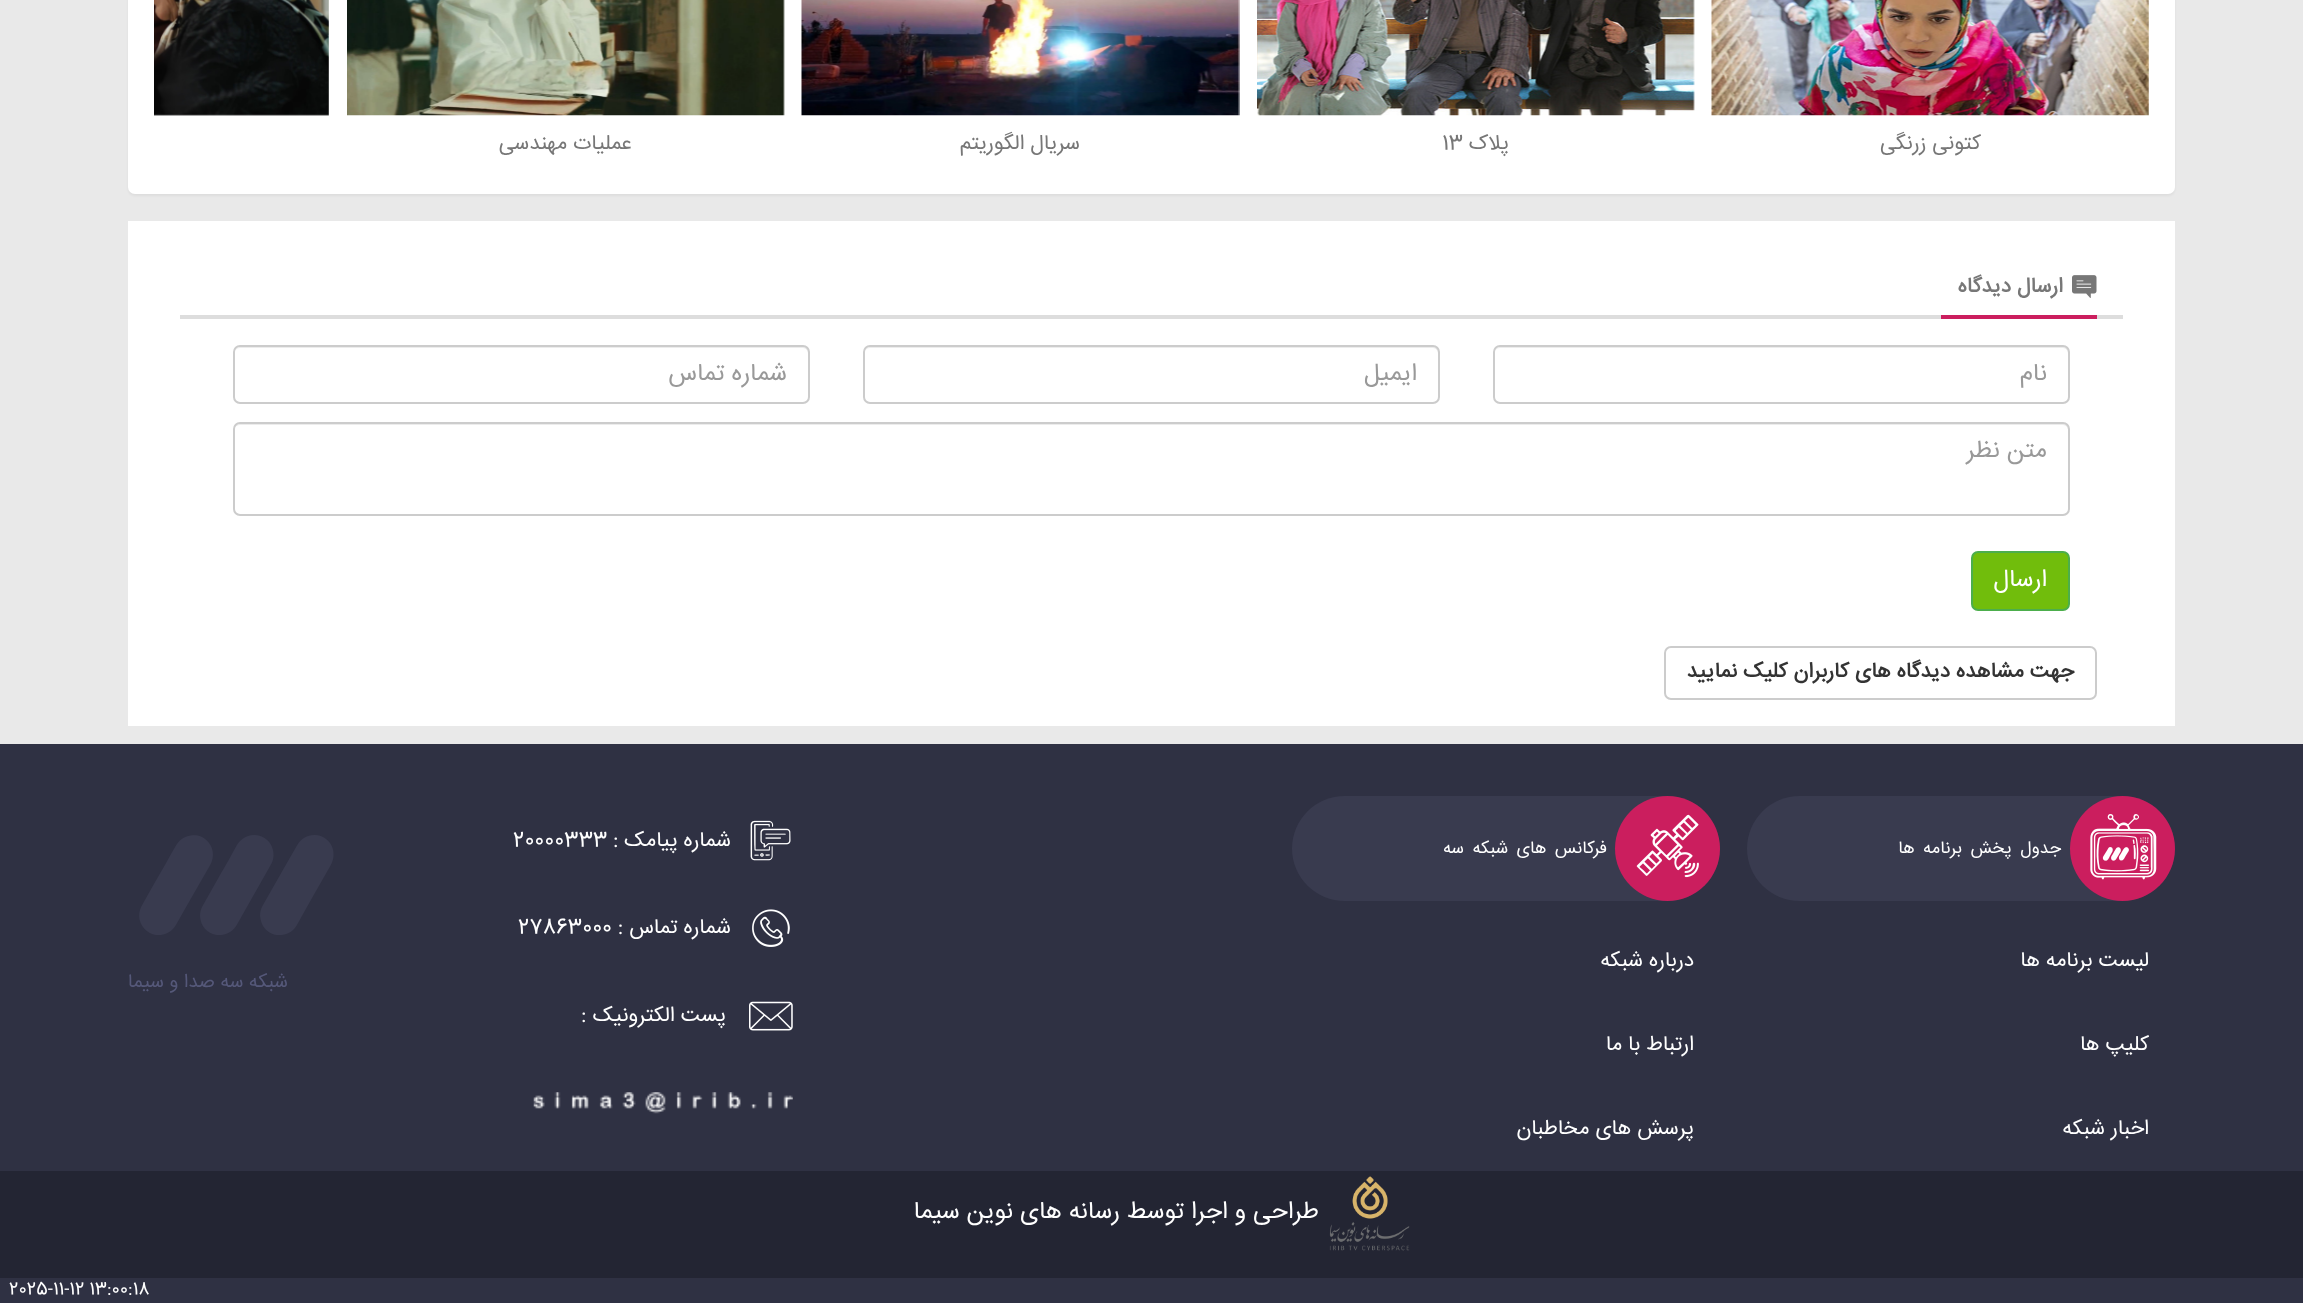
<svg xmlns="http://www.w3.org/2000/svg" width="2303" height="1303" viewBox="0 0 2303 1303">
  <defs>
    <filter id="blur1" x="-50%" y="-200%" width="200%" height="500%"><feGaussianBlur stdDeviation="1"/></filter>
  </defs>
  <rect width="100%" height="100%" fill="#e9e9e9"/>
  <rect x="128" y="-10" width="2047" height="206" rx="7" fill="#000000" fill-opacity="0.05" filter="url(#blur1)"/>
  <rect x="128" y="-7" width="2047" height="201" rx="7" fill="#ffffff"/>
  <image x="154" y="0" width="175" height="116" href="img1.png"/>
  <image x="1711" y="0" width="438" height="116" href="img2.png"/>
  <text x="1981" y="149" font-family="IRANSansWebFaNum" font-size="21" direction="rtl" fill="#777777">کتونی زرنگی</text>
  <image x="1257" y="0" width="438" height="116" href="img3.png"/>
  <text x="1509" y="149" font-family="IRANSansWebFaNum" font-size="21" direction="rtl" fill="#777777">پلاک</text>
  <text x="1442" y="149" font-family="IRANSansWebFaNum" font-size="21" fill="#777777">13</text>
  <image x="801" y="0" width="439" height="116" href="img4.png"/>
  <text x="1080" y="149" font-family="IRANSansWebFaNum" font-size="21" direction="rtl" fill="#777777">سریال الگوریتم</text>
  <image x="347" y="0" width="438" height="116" href="img5.png"/>
  <text x="632" y="149" font-family="IRANSansWebFaNum" font-size="21" direction="rtl" fill="#777777">عملیات مهندسی</text>
  <rect x="128" y="221" width="2047" height="505" fill="#ffffff"/>
  <rect x="180" y="315" width="1943" height="4" fill="#dddddd"/>
  <rect x="1941" y="315" width="156" height="4" fill="#cb1e5e"/>
  <image x="2072" y="275" width="25" height="23" href="img6.png"/>
  <text x="2063" y="292" font-family="IRANSansWebFaNum" font-size="21" font-weight="bold" direction="rtl" fill="#777777">ارسال دیدگاه</text>
  <path d="M1500 348H2063C2066 348 2068 351 2068 354V399L2067 402C2068 401 2069 399 2069 398V352C2069 349 2067 347 2064 347H1500C1498 347 1496 349 1495 351C1496 349 1498 348 1500 348Z" fill="#ececec"/>
  <rect x="1494" y="346" width="575" height="57" rx="6" fill="none" stroke="#cccccc" stroke-width="2"/>
  <text x="2047" y="380" font-family="IRANSansWebFaNum" font-size="24.5" direction="rtl" fill="#999999">نام</text>
  <path d="M870 348H1433C1436 348 1438 351 1438 354V399L1437 402C1438 401 1439 399 1439 398V352C1439 349 1437 347 1434 347H870C868 347 866 349 865 351C866 349 868 348 870 348Z" fill="#ececec"/>
  <rect x="864" y="346" width="575" height="57" rx="6" fill="none" stroke="#cccccc" stroke-width="2"/>
  <text x="1417" y="380" font-family="IRANSansWebFaNum" font-size="24.5" direction="rtl" fill="#999999">ایمیل</text>
  <path d="M240 348H803C806 348 808 351 808 354V399L807 402C808 401 809 399 809 398V352C809 349 807 347 804 347H240C238 347 236 349 235 351C236 349 238 348 240 348Z" fill="#ececec"/>
  <rect x="234" y="346" width="575" height="57" rx="6" fill="none" stroke="#cccccc" stroke-width="2"/>
  <text x="787" y="380" font-family="IRANSansWebFaNum" font-size="24.5" direction="rtl" fill="#999999">شماره تماس</text>
  <path d="M240 425H2063C2066 425 2068 428 2068 430V511L2067 514C2068 513 2069 511 2069 510V429C2069 426 2067 424 2064 424H240C238 424 236 425 235 427C236 426 238 425 240 425Z" fill="#ececec"/>
  <rect x="234" y="423" width="1835" height="92" rx="6" fill="none" stroke="#cccccc" stroke-width="2"/>
  <text x="2047" y="457" font-family="IRANSansWebFaNum" font-size="24.5" direction="rtl" fill="#999999">متن نظر</text>
  <rect x="1972" y="552" width="97" height="58" rx="6" fill="#71bd0c" stroke="#4cae4c" stroke-width="2"/>
  <text x="2047" y="586" font-family="IRANSansWebFaNum" font-size="24.5" direction="rtl" fill="#ffffff">ارسال</text>
  <rect x="1665" y="647" width="431" height="52" rx="6" fill="none" stroke="#cccccc" stroke-width="2"/>
  <text x="2074" y="677" font-family="IRANSansWebFaNum" font-size="21" font-weight="bold" direction="rtl" fill="#333333">جهت مشاهده دیدگاه های کاربران کلیک نمایید</text>
  <rect x="0" y="744" width="2303" height="559" fill="#2f3143"/>
  <rect x="1747" y="796" width="428" height="105" rx="52.5" fill="#393b4f"/>
  <circle cx="2122.5" cy="848.5" r="52.5" fill="#cb1e5e"/>
  <image x="2090" y="814" width="67" height="66" href="img7.png"/>
  <text x="2061" y="853" word-spacing="3.5" font-family="IRANSansWebFaNum" font-size="17.5" direction="rtl" fill="#ffffff">جدول پخش برنامه ها</text>
  <rect x="1292" y="796" width="428" height="105" rx="52.5" fill="#393b4f"/>
  <circle cx="1667.5" cy="848.5" r="52.5" fill="#cb1e5e"/>
  <image x="1636" y="814" width="63" height="64" href="img8.png"/>
  <text x="1607" y="853" word-spacing="3.5" font-family="IRANSansWebFaNum" font-size="17.5" direction="rtl" fill="#ffffff">فرکانس های شبکه سه</text>
  <text x="2149" y="966" font-family="IRANSansWebFaNum" font-size="21" direction="rtl" fill="#ffffff">لیست برنامه ها</text>
  <text x="2149" y="1050" font-family="IRANSansWebFaNum" font-size="21" direction="rtl" fill="#ffffff">کلیپ ها</text>
  <text x="2149" y="1134" font-family="IRANSansWebFaNum" font-size="21" direction="rtl" fill="#ffffff">اخبار شبکه</text>
  <text x="1694" y="966" font-family="IRANSansWebFaNum" font-size="21" direction="rtl" fill="#ffffff">درباره شبکه</text>
  <text x="1694" y="1050" font-family="IRANSansWebFaNum" font-size="21" direction="rtl" fill="#ffffff">ارتباط با ما</text>
  <text x="1694" y="1134" font-family="IRANSansWebFaNum" font-size="21" direction="rtl" fill="#ffffff">پرسش های مخاطبان</text>
  <image x="750" y="820" width="41" height="41" href="img9.png"/>
  <text x="731" y="846" font-family="IRANSansWebFaNum" font-size="21" direction="rtl" fill="#ffffff">شماره پیامک :</text>
  <text x="513" y="846" font-family="IRANSansWebFaNum" font-size="21" fill="#ffffff">20000333</text>
  <image x="752" y="909" width="38" height="38" href="img10.png"/>
  <text x="731" y="933" font-family="IRANSansWebFaNum" font-size="21" direction="rtl" fill="#ffffff">شماره تماس :</text>
  <text x="518" y="933" font-family="IRANSansWebFaNum" font-size="21" fill="#ffffff">27863000</text>
  <image x="749" y="1001" width="44" height="30" href="img11.png"/>
  <text x="726" y="1021" font-family="IRANSansWebFaNum" font-size="21" direction="rtl" fill="#ffffff">پست الکترونیک</text>
  <text x="581" y="1021" font-family="IRANSansWebFaNum" font-size="21" fill="#ffffff">:</text>
  <image x="533" y="1092" width="260" height="22" href="img12.png"/>
  <image x="139" y="835" width="195" height="100" href="img13.png"/>
  <text x="288" y="987" font-family="IRANSansWebFaNum" font-size="19.25" direction="rtl" fill="#555879">شبکه سه صدا و سیما</text>
  <rect x="0" y="1171" width="2303" height="107" fill="#232533"/>
  <image x="1329" y="1176" width="81" height="75" href="img14.png"/>
  <text x="1319" y="1218" font-family="IRANSansWebFaNum" font-size="24.5" direction="rtl" fill="#ffffff">طراحی و اجرا توسط</text>
  <text x="1120" y="1218" font-family="IRANSansWebFaNum" font-size="24.5" direction="rtl" fill="#ffffff">رسانه های نوین سیما</text>
  <text x="9" y="1294" font-family="IRANSansWebFaNum" font-size="17.5" fill="#ffffff">2025-11-12 13:00:18</text>
</svg>
